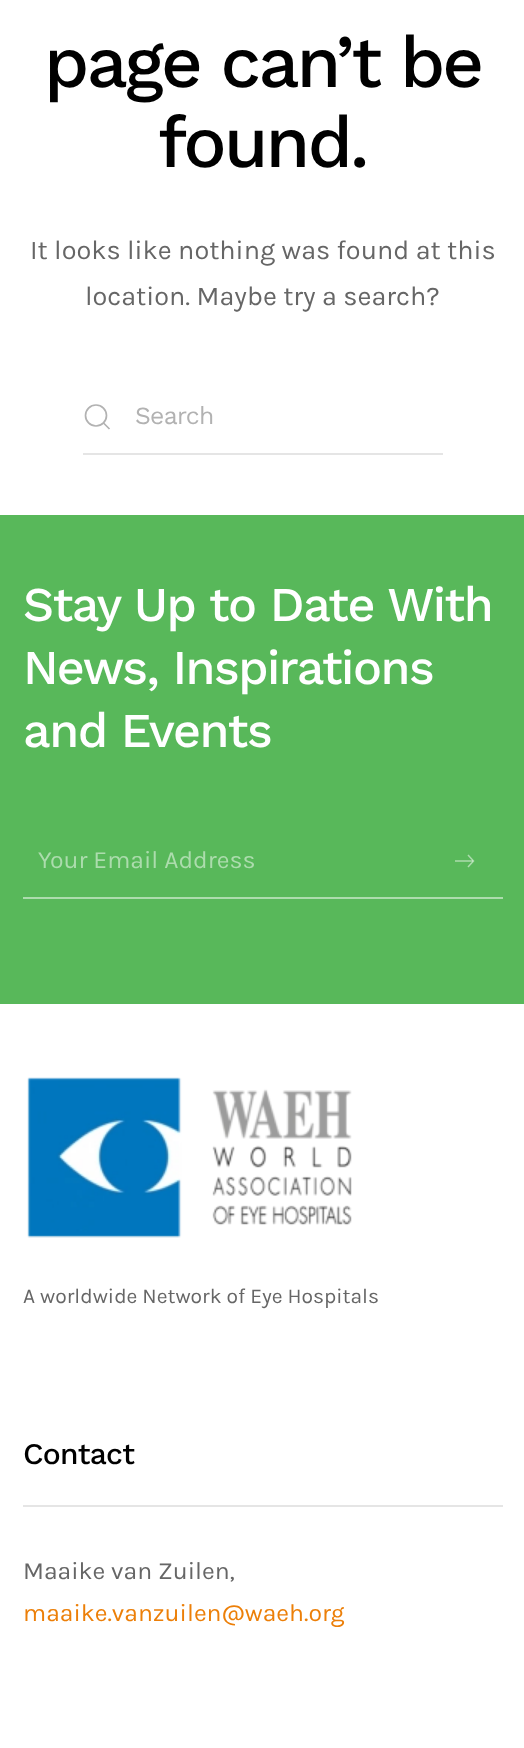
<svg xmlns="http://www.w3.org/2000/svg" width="524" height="1748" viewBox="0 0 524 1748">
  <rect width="100%" height="100%" fill="#ffffff"/>
  <text x="44" y="87" font-family="Work Sans" font-size="72.5" font-weight="500" letter-spacing="-3" fill="#000000">page can’t be</text>
  <text x="158" y="167" font-family="Work Sans" font-size="72.5" font-weight="500" letter-spacing="-3" fill="#000000">found.</text>
  <text x="30" y="259" font-family="Karla" font-size="27" fill="#666666">It looks like nothing was found at this</text>
  <text x="85" y="305" font-family="Karla" font-size="27" fill="#666666">location. Maybe try a search?</text>
  <circle cx="96" cy="415.5" r="10.5" fill="none" stroke="#b2b2b2" stroke-width="1.7"/>
  <path d="M103.5 423L109.5 429Z" fill="none" stroke="#b2b2b2" stroke-width="1.7"/>
  <rect x="83" y="453" width="360" height="2" fill="#e5e5e5"/>
  <text x="135" y="424" font-family="Work Sans" font-size="24.75" letter-spacing="-0.75" fill="#b2b2b2">Search</text>
  <rect x="0" y="515" width="524" height="489" fill="#58b85a"/>
  <text x="23" y="621" font-family="Work Sans" font-size="48.5" font-weight="500" letter-spacing="-1.5" fill="#ffffff">Stay Up to Date With</text>
  <text x="23" y="684" font-family="Work Sans" font-size="48.5" font-weight="500" letter-spacing="-1.5" fill="#ffffff">News, Inspirations</text>
  <text x="23" y="747" font-family="Work Sans" font-size="48.5" font-weight="500" letter-spacing="-1.5" fill="#ffffff">and Events</text>
  <rect x="23" y="897" width="480" height="2" fill="#acdcad"/>
  <text x="38" y="868" font-family="Karla" font-size="24.75" fill="#acdcad">Your Email Address</text>
  <rect x="455" y="860" width="18" height="2" fill="#97d398"/>
  <path d="M468 867L473.5 861L468 855" fill="none" stroke="#ffffff" stroke-opacity="0.5" stroke-width="1.5"/>
  <image x="27" y="1077" width="325" height="161" href="img1.png"/>
  <text x="23" y="1303" font-family="Karla" font-size="21" fill="#666666">A worldwide Network of Eye Hospitals</text>
  <text x="23" y="1464" font-family="Work Sans" font-size="30" font-weight="500" letter-spacing="-0.75" fill="#000000">Contact</text>
  <rect x="23" y="1505" width="480" height="2" fill="#e5e5e5"/>
  <text x="23" y="1579" font-family="Karla" font-size="24.75" fill="#666666">Maaike van Zuilen,</text>
  <text x="23" y="1621" font-family="Karla" font-size="24.75" fill="#ec7f08">maaike.vanzuilen@waeh.org</text>
</svg>
